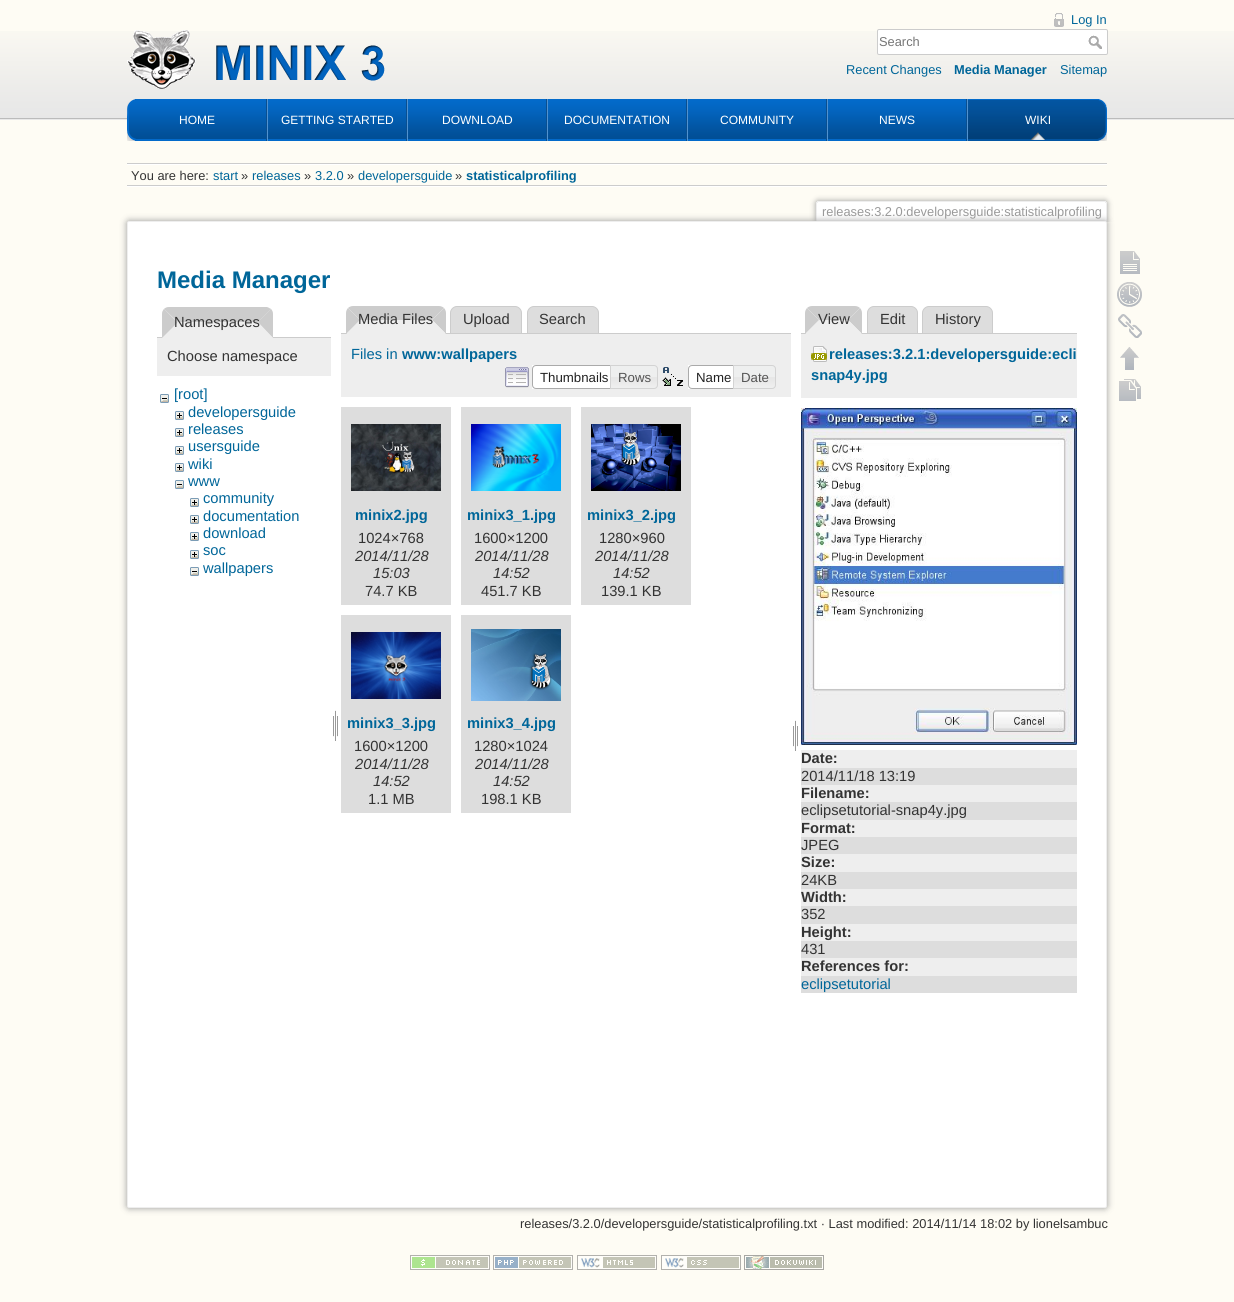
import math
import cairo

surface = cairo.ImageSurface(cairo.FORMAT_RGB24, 1234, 1302)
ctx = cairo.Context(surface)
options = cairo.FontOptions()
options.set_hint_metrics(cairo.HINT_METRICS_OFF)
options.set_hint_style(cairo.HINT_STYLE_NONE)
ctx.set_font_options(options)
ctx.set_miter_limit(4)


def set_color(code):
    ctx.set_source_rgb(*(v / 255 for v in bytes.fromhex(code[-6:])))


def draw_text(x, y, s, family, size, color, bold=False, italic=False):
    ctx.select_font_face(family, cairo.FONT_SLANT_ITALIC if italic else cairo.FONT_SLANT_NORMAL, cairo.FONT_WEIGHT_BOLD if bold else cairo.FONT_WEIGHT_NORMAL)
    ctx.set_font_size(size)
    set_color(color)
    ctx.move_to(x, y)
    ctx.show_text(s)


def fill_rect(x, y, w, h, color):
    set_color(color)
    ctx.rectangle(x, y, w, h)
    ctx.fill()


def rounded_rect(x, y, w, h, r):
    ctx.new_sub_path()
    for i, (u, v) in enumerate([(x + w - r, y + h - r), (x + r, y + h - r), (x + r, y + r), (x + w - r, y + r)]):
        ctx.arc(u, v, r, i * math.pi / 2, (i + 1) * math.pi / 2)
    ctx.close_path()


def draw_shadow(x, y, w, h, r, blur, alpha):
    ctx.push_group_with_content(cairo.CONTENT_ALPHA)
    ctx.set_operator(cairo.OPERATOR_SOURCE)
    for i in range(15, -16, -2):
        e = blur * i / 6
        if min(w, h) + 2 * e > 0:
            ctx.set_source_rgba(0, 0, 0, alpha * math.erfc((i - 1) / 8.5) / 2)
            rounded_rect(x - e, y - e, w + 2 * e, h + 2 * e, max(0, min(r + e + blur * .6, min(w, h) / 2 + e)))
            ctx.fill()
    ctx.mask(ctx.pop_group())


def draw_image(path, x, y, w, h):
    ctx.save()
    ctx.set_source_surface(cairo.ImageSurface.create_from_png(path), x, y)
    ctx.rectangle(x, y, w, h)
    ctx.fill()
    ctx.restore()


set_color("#fefcf4")
ctx.paint()
draw_image("assets/img1.png", 0, 31, 1234, 89)
draw_image("assets/img2.png", 1054, 13, 10, 14)
draw_text(1071, 24, "Log In", "Liberation Sans", 12.85, "#006699")
set_color("#ffffff")
rounded_rect(877.5, 29.5, 230, 25, 1.5)
ctx.fill_preserve()
set_color("#cccccc")
ctx.set_line_width(1)
ctx.stroke()
draw_text(879, 46, "Search", "Liberation Sans", 12.85, "#757575")
draw_image("assets/img3.png", 1088, 35, 14, 14)
draw_text(846, 74, "Recent Changes", "Liberation Sans", 12.85, "#006699")
draw_text(954, 74, "Media Manager", "Liberation Sans", 12.85, "#006699", bold=True)
draw_text(1060, 74, "Sitemap", "Liberation Sans", 12.85, "#006699")
draw_image("assets/img4.png", 127, 30, 258, 59)
draw_image("assets/img5.png", 127, 99, 139, 42)
fill_rect(266, 99, 1, 42, "#094f90")
draw_text(179, 124, "HOME", "Liberation Sans", 12, "#ffffff")
draw_image("assets/img6.png", 268, 99, 138, 42)
fill_rect(406, 99, 1, 42, "#094f90")
fill_rect(267, 99, 1, 42, "#5092d0")
draw_text(281, 124, "GETTING STARTED", "Liberation Sans", 12, "#ffffff")
draw_image("assets/img6.png", 408, 99, 138, 42)
fill_rect(546, 99, 1, 42, "#094f90")
fill_rect(407, 99, 1, 42, "#5092d0")
draw_text(442, 124, "DOWNLOAD", "Liberation Sans", 12, "#ffffff")
draw_image("assets/img6.png", 548, 99, 138, 42)
fill_rect(686, 99, 1, 42, "#094f90")
fill_rect(547, 99, 1, 42, "#5092d0")
draw_text(564, 124, "DOCUMENTATION", "Liberation Sans", 12, "#ffffff")
draw_image("assets/img6.png", 688, 99, 138, 42)
fill_rect(826, 99, 1, 42, "#094f90")
fill_rect(687, 99, 1, 42, "#5092d0")
draw_text(720, 124, "COMMUNITY", "Liberation Sans", 12, "#ffffff")
draw_image("assets/img6.png", 828, 99, 138, 42)
fill_rect(966, 99, 1, 42, "#094f90")
fill_rect(827, 99, 1, 42, "#5092d0")
draw_text(879, 124, "NEWS", "Liberation Sans", 12, "#ffffff")
draw_image("assets/img7.png", 968, 99, 139, 42)
fill_rect(967, 99, 1, 42, "#5092d0")
draw_image("assets/img8.png", 1030, 132, 15, 8)
draw_text(1025, 124, "WIKI", "Liberation Sans", 12, "#ffffff")
fill_rect(127, 163, 980, 1, "#cccccc")
fill_rect(127, 186, 980, 1, "#ffffff")
fill_rect(127, 164, 980, 1, "#ffffff")
fill_rect(127, 185, 980, 1, "#cccccc")
draw_text(131, 180, "You are here:", "Liberation Sans", 12.85, "#333333")
draw_text(213, 180, "start", "Liberation Sans", 12.85, "#006699")
draw_text(241, 180, "»", "Liberation Sans", 12.85, "#333333")
draw_text(252, 180, "releases", "Liberation Sans", 12.85, "#006699")
draw_text(304, 180, "»", "Liberation Sans", 12.85, "#333333")
draw_text(315, 180, "3.2.0", "Liberation Sans", 12.85, "#006699")
draw_text(347, 180, "»", "Liberation Sans", 12.85, "#333333")
draw_text(358, 180, "developersguide", "Liberation Sans", 12.85, "#006699")
draw_text(455, 180, "»", "Liberation Sans", 12.85, "#333333")
draw_text(466, 180, "statisticalprofiling", "Liberation Sans", 12.85, "#006699", bold=True)
ctx.save()
ctx.rectangle(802, 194, 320, 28)
ctx.clip()
set_color("#999999")
draw_shadow(816, 201, 291, 21, 2, 3, 1)
ctx.restore()
set_color("#ffffff")
ctx.new_path()
ctx.move_to(818, 202)
ctx.line_to(1105, 202)
ctx.curve_to(1105.5, 202, 1106, 202.5, 1106, 203)
ctx.line_to(1106, 222)
ctx.line_to(817, 222)
ctx.line_to(817, 203)
ctx.curve_to(817, 202.5, 817.5, 202, 818, 202)
ctx.close_path()
ctx.fill()
fill_rect(817, 201, 289, 1, "#eeeeee")
fill_rect(1106, 202, 1, 20, "#eeeeee")
fill_rect(816, 202, 1, 20, "#eeeeee")
draw_text(822, 216, "releases:3.2.0:developersguide:statisticalprofiling", "Liberation Sans", 12.85, "#999999")
set_color("#999999")
draw_shadow(127, 221, 980, 987, 2, 3.5, 1)
set_color("#ffffff")
rounded_rect(127.5, 221.5, 979, 986, 1.5)
ctx.fill_preserve()
set_color("#eeeeee")
ctx.stroke()
draw_text(157, 288, "Media Manager", "Liberation Sans", 24, "#006699", bold=True)
fill_rect(157, 337, 174, 1, "#cccccc")
set_color("#eeeeee")
ctx.new_path()
ctx.move_to(169, 307)
ctx.line_to(266, 307)
ctx.curve_to(270, 307, 273, 310, 273, 314)
ctx.line_to(273, 338)
ctx.line_to(162, 338)
ctx.line_to(162, 314)
ctx.curve_to(162, 310, 165, 307, 169, 307)
ctx.close_path()
ctx.fill()
set_color("#cccccc")
ctx.new_path()
ctx.move_to(169, 307)
ctx.line_to(267, 307)
ctx.line_to(271, 309)
ctx.line_to(258, 322)
ctx.line_to(178, 322)
ctx.line_to(164, 309)
ctx.curve_to(165, 308, 167, 307, 169, 307)
ctx.close_path()
ctx.fill()
ctx.new_path()
ctx.move_to(271, 309)
ctx.line_to(257.5, 322.5)
ctx.line_to(273, 338)
ctx.line_to(273, 314)
ctx.curve_to(273, 312, 272, 310, 271, 309)
ctx.close_path()
ctx.fill()
set_color("#eeeeee")
ctx.new_path()
ctx.move_to(273, 338)
ctx.line_to(258, 322)
ctx.line_to(178, 322)
ctx.line_to(162, 338)
ctx.close_path()
ctx.fill()
set_color("#cccccc")
ctx.new_path()
ctx.move_to(162, 338)
ctx.line_to(162, 314)
ctx.curve_to(162, 312, 163, 310, 164, 309)
ctx.line_to(177.5, 322.5)
ctx.close_path()
ctx.fill()
draw_text(174, 327, "Namespaces", "Liberation Sans", 14.7, "#333333")
fill_rect(157, 338, 174, 38, "#eeeeee")
draw_text(167, 361, "Choose namespace", "Liberation Sans", 14.7, "#333333")
draw_image("assets/img9.png", 160, 394, 9, 9)
draw_text(174, 399, "[root]", "Liberation Sans", 14.7, "#006699")
draw_image("assets/img10.png", 175, 411, 9, 9)
draw_text(188, 417, "developersguide", "Liberation Sans", 14.7, "#006699")
draw_image("assets/img10.png", 175, 428, 9, 9)
draw_text(188, 434, "releases", "Liberation Sans", 14.7, "#006699")
draw_image("assets/img10.png", 175, 446, 9, 9)
draw_text(188, 451, "usersguide", "Liberation Sans", 14.7, "#006699")
draw_image("assets/img10.png", 175, 463, 9, 9)
draw_text(188, 469, "wiki", "Liberation Sans", 14.7, "#006699")
draw_image("assets/img9.png", 175, 480, 9, 9)
draw_text(188, 486, "www", "Liberation Sans", 14.7, "#006699")
draw_image("assets/img10.png", 190, 498, 9, 9)
draw_text(203, 503, "community", "Liberation Sans", 14.7, "#006699")
draw_image("assets/img10.png", 190, 515, 9, 9)
draw_text(203, 521, "documentation", "Liberation Sans", 14.7, "#006699")
draw_image("assets/img10.png", 190, 532, 9, 9)
draw_text(203, 538, "download", "Liberation Sans", 14.7, "#006699")
draw_image("assets/img10.png", 190, 550, 9, 9)
draw_text(203, 555, "soc", "Liberation Sans", 14.7, "#006699")
draw_image("assets/img9.png", 190, 567, 9, 9)
draw_text(203, 573, "wallpapers", "Liberation Sans", 14.7, "#006699")
draw_image("assets/img11.png", 333, 710, 5, 31)
set_color("#cccccc")
ctx.new_path()
ctx.move_to(353, 306)
ctx.line_to(439, 306)
ctx.curve_to(441, 306, 443, 307, 444, 308)
ctx.line_to(432, 320)
ctx.line_to(360, 320)
ctx.line_to(348, 308)
ctx.curve_to(349, 307, 351, 306, 353, 306)
ctx.close_path()
ctx.fill()
set_color("#dddddd")
ctx.new_path()
ctx.move_to(457, 306.5)
ctx.line_to(515, 306.5)
ctx.curve_to(518.5, 306.5, 521.5, 309.5, 521.5, 313)
ctx.line_to(521.5, 333.5)
ctx.line_to(450.5, 333.5)
ctx.line_to(450.5, 313)
ctx.curve_to(450.5, 309.5, 453.5, 306.5, 457, 306.5)
ctx.close_path()
ctx.fill_preserve()
set_color("#cccccc")
ctx.stroke()
set_color("#dddddd")
ctx.new_path()
ctx.move_to(534, 306.5)
ctx.line_to(592, 306.5)
ctx.curve_to(595.5, 306.5, 598.5, 309.5, 598.5, 313)
ctx.line_to(598.5, 333.5)
ctx.line_to(527.5, 333.5)
ctx.line_to(527.5, 313)
ctx.curve_to(527.5, 309.5, 530.5, 306.5, 534, 306.5)
ctx.close_path()
ctx.fill_preserve()
set_color("#cccccc")
ctx.stroke()
fill_rect(341, 333, 450, 1, "#cccccc")
ctx.new_path()
ctx.move_to(444, 308)
ctx.line_to(432, 320)
ctx.line_to(446, 334)
ctx.line_to(446, 313)
ctx.curve_to(446, 311, 445, 309, 444, 308)
ctx.close_path()
ctx.fill()
set_color("#eeeeee")
ctx.new_path()
ctx.move_to(446, 334)
ctx.line_to(432, 320)
ctx.line_to(360, 320)
ctx.line_to(346, 334)
ctx.close_path()
ctx.fill()
set_color("#cccccc")
ctx.new_path()
ctx.move_to(346, 334)
ctx.line_to(346, 313)
ctx.curve_to(346, 311, 347, 309, 348, 308)
ctx.line_to(360, 320)
ctx.close_path()
ctx.fill()
draw_text(358, 324, "Media Files", "Liberation Sans", 14.7, "#333333")
draw_text(463, 324, "Upload", "Liberation Sans", 14.7, "#333333")
draw_text(539, 324, "Search", "Liberation Sans", 14.7, "#333333")
fill_rect(341, 334, 450, 63, "#eeeeee")
draw_text(351, 359, "Files in", "Liberation Sans", 14.7, "#006699")
draw_text(402, 359, "www:wallpapers", "Liberation Sans", 14.7, "#006699", bold=True)
draw_image("assets/img12.png", 505, 367, 24, 21)
fill_rect(532, 365, 78, 24, "#ffffff")
ctx.new_path()
ctx.move_to(536, 365.5)
ctx.line_to(614.5, 365.5)
ctx.line_to(614.5, 388.5)
ctx.line_to(536, 388.5)
ctx.curve_to(534, 388.5, 532.5, 387, 532.5, 385)
ctx.line_to(532.5, 369)
ctx.curve_to(532.5, 367, 534, 365.5, 536, 365.5)
ctx.close_path()
set_color("#aaaaaa")
ctx.stroke()
draw_text(540, 382, "Thumbnails", "Liberation Sans", 13.25, "#212121")
draw_image("assets/img13.png", 611, 365, 47, 24)
ctx.new_path()
ctx.move_to(610.5, 365.5)
ctx.line_to(654, 365.5)
ctx.curve_to(656, 365.5, 657.5, 367, 657.5, 369)
ctx.line_to(657.5, 385)
ctx.curve_to(657.5, 387, 656, 388.5, 654, 388.5)
ctx.line_to(610.5, 388.5)
ctx.close_path()
set_color("#d3d3d3")
ctx.stroke()
draw_text(618, 382, "Rows", "Liberation Sans", 13.25, "#555555")
draw_image("assets/img14.png", 662, 367, 21, 19)
fill_rect(688, 365, 45, 24, "#ffffff")
ctx.new_path()
ctx.move_to(692, 365.5)
ctx.line_to(737.5, 365.5)
ctx.line_to(737.5, 388.5)
ctx.line_to(692, 388.5)
ctx.curve_to(690, 388.5, 688.5, 387, 688.5, 385)
ctx.line_to(688.5, 369)
ctx.curve_to(688.5, 367, 690, 365.5, 692, 365.5)
ctx.close_path()
set_color("#aaaaaa")
ctx.stroke()
draw_text(696, 382, "Name", "Liberation Sans", 13.25, "#212121")
draw_image("assets/img15.png", 734, 365, 42, 24)
ctx.new_path()
ctx.move_to(733.5, 365.5)
ctx.line_to(772, 365.5)
ctx.curve_to(774, 365.5, 775.5, 367, 775.5, 369)
ctx.line_to(775.5, 385)
ctx.curve_to(775.5, 387, 774, 388.5, 772, 388.5)
ctx.line_to(733.5, 388.5)
ctx.close_path()
set_color("#d3d3d3")
ctx.stroke()
draw_text(741, 382, "Date", "Liberation Sans", 13.25, "#555555")
fill_rect(341, 407, 110, 198, "#dddddd")
draw_image("assets/img16.png", 351, 424, 90, 67)
draw_text(355, 520, "minix2.jpg", "Liberation Sans", 14.7, "#006699", bold=True)
draw_text(358, 543, "1024×768", "Liberation Sans", 14.7, "#333333")
draw_text(355, 561, "2014/11/28", "Liberation Sans", 14.7, "#333333", italic=True)
draw_text(373, 578, "15:03", "Liberation Sans", 14.7, "#333333", italic=True)
draw_text(365, 596, "74.7 KB", "Liberation Sans", 14.7, "#333333")
fill_rect(461, 407, 110, 198, "#dddddd")
draw_image("assets/img17.png", 471, 424, 90, 67)
draw_text(467, 520, "minix3_1.jpg", "Liberation Sans", 14.7, "#006699", bold=True)
draw_text(474, 543, "1600×1200", "Liberation Sans", 14.7, "#333333")
draw_text(475, 561, "2014/11/28", "Liberation Sans", 14.7, "#333333", italic=True)
draw_text(493, 578, "14:52", "Liberation Sans", 14.7, "#333333", italic=True)
draw_text(481, 596, "451.7 KB", "Liberation Sans", 14.7, "#333333")
fill_rect(581, 407, 110, 198, "#dddddd")
draw_image("assets/img18.png", 591, 424, 90, 67)
draw_text(587, 520, "minix3_2.jpg", "Liberation Sans", 14.7, "#006699", bold=True)
draw_text(599, 543, "1280×960", "Liberation Sans", 14.7, "#333333")
draw_text(595, 561, "2014/11/28", "Liberation Sans", 14.7, "#333333", italic=True)
draw_text(613, 578, "14:52", "Liberation Sans", 14.7, "#333333", italic=True)
draw_text(601, 596, "139.1 KB", "Liberation Sans", 14.7, "#333333")
fill_rect(341, 615, 110, 198, "#dddddd")
draw_image("assets/img19.png", 351, 632, 90, 67)
draw_text(347, 728, "minix3_3.jpg", "Liberation Sans", 14.7, "#006699", bold=True)
draw_text(354, 751, "1600×1200", "Liberation Sans", 14.7, "#333333")
draw_text(355, 769, "2014/11/28", "Liberation Sans", 14.7, "#333333", italic=True)
draw_text(373, 786, "14:52", "Liberation Sans", 14.7, "#333333", italic=True)
draw_text(368, 804, "1.1 MB", "Liberation Sans", 14.7, "#333333")
fill_rect(461, 615, 110, 198, "#dddddd")
draw_image("assets/img20.png", 471, 629, 90, 72)
draw_text(467, 728, "minix3_4.jpg", "Liberation Sans", 14.7, "#006699", bold=True)
draw_text(474, 751, "1280×1024", "Liberation Sans", 14.7, "#333333")
draw_text(475, 769, "2014/11/28", "Liberation Sans", 14.7, "#333333", italic=True)
draw_text(493, 786, "14:52", "Liberation Sans", 14.7, "#333333", italic=True)
draw_text(481, 804, "198.1 KB", "Liberation Sans", 14.7, "#333333")
draw_image("assets/img11.png", 793, 720, 5, 31)
set_color("#cccccc")
ctx.new_path()
ctx.move_to(812, 306)
ctx.line_to(855, 306)
ctx.curve_to(857, 306, 859, 307, 860, 308)
ctx.line_to(848, 320)
ctx.line_to(819, 320)
ctx.line_to(807, 308)
ctx.curve_to(808, 307, 810, 306, 812, 306)
ctx.close_path()
ctx.fill()
set_color("#dddddd")
ctx.new_path()
ctx.move_to(874, 306.5)
ctx.line_to(911, 306.5)
ctx.curve_to(914.5, 306.5, 917.5, 309.5, 917.5, 313)
ctx.line_to(917.5, 333.5)
ctx.line_to(867.5, 333.5)
ctx.line_to(867.5, 313)
ctx.curve_to(867.5, 309.5, 870.5, 306.5, 874, 306.5)
ctx.close_path()
ctx.fill_preserve()
set_color("#cccccc")
ctx.stroke()
set_color("#dddddd")
ctx.new_path()
ctx.move_to(929, 306.5)
ctx.line_to(986, 306.5)
ctx.curve_to(989.5, 306.5, 992.5, 309.5, 992.5, 313)
ctx.line_to(992.5, 333.5)
ctx.line_to(922.5, 333.5)
ctx.line_to(922.5, 313)
ctx.curve_to(922.5, 309.5, 925.5, 306.5, 929, 306.5)
ctx.close_path()
ctx.fill_preserve()
set_color("#cccccc")
ctx.stroke()
fill_rect(801, 333, 276, 1, "#cccccc")
ctx.new_path()
ctx.move_to(860, 308)
ctx.line_to(848, 320)
ctx.line_to(862, 334)
ctx.line_to(862, 313)
ctx.curve_to(862, 311, 861, 309, 860, 308)
ctx.close_path()
ctx.fill()
set_color("#eeeeee")
ctx.new_path()
ctx.move_to(862, 334)
ctx.line_to(848, 320)
ctx.line_to(819, 320)
ctx.line_to(805, 334)
ctx.close_path()
ctx.fill()
set_color("#cccccc")
ctx.new_path()
ctx.move_to(805, 334)
ctx.line_to(805, 313)
ctx.curve_to(805, 311, 806, 309, 807, 308)
ctx.line_to(819, 320)
ctx.close_path()
ctx.fill()
draw_text(818, 324, "View", "Liberation Sans", 14.7, "#333333")
draw_text(880, 324, "Edit", "Liberation Sans", 14.7, "#333333")
draw_text(935, 324, "History", "Liberation Sans", 14.7, "#333333")
fill_rect(801, 334, 276, 64, "#eeeeee")
draw_image("assets/img21.png", 811, 346, 16, 16)
draw_text(829, 359, "releases:3.2.1:developersguide:ecli", "Liberation Sans", 14.7, "#006699", bold=True)
draw_text(811, 380, "snap4y.jpg", "Liberation Sans", 14.7, "#006699", bold=True)
draw_image("assets/img22.png", 801, 408, 276, 337)
fill_rect(801, 750, 276, 18, "#eeeeee")
draw_text(801, 763, "Date:", "Liberation Sans", 14.7, "#333333", bold=True)
fill_rect(801, 768, 276, 17, "#dddddd")
draw_text(801, 781, "2014/11/18 13:19", "Liberation Sans", 14.7, "#333333")
fill_rect(801, 785, 276, 17, "#eeeeee")
draw_text(801, 798, "Filename:", "Liberation Sans", 14.7, "#333333", bold=True)
fill_rect(801, 802, 276, 18, "#dddddd")
draw_text(801, 815, "eclipsetutorial-snap4y.jpg", "Liberation Sans", 14.7, "#333333")
fill_rect(801, 820, 276, 17, "#eeeeee")
draw_text(801, 833, "Format:", "Liberation Sans", 14.7, "#333333", bold=True)
fill_rect(801, 837, 276, 17, "#dddddd")
draw_text(801, 850, "JPEG", "Liberation Sans", 14.7, "#333333")
fill_rect(801, 854, 276, 18, "#eeeeee")
draw_text(801, 867, "Size:", "Liberation Sans", 14.7, "#333333", bold=True)
fill_rect(801, 872, 276, 17, "#dddddd")
draw_text(801, 885, "24KB", "Liberation Sans", 14.7, "#333333")
fill_rect(801, 889, 276, 17, "#eeeeee")
draw_text(801, 902, "Width:", "Liberation Sans", 14.7, "#333333", bold=True)
fill_rect(801, 906, 276, 18, "#dddddd")
draw_text(801, 919, "352", "Liberation Sans", 14.7, "#333333")
fill_rect(801, 924, 276, 17, "#eeeeee")
draw_text(801, 937, "Height:", "Liberation Sans", 14.7, "#333333", bold=True)
fill_rect(801, 941, 276, 17, "#dddddd")
draw_text(801, 954, "431", "Liberation Sans", 14.7, "#333333")
fill_rect(801, 958, 276, 18, "#eeeeee")
draw_text(801, 971, "References for:", "Liberation Sans", 14.7, "#333333", bold=True)
fill_rect(801, 976, 276, 17, "#dddddd")
draw_text(801, 989, "eclipsetutorial", "Liberation Sans", 14.7, "#006699")
draw_text(520, 1228, "releases/3.2.0/developersguide/statisticalprofiling.txt · Last modified: 2014/11/14 18:02 by lionelsambuc", "Liberation Sans", 12.85, "#333333")
draw_image("assets/img23.png", 1120, 251, 20, 23)
draw_image("assets/img24.png", 1117, 282, 25, 25)
draw_image("assets/img25.png", 1118, 314, 24, 24)
draw_image("assets/img26.png", 1120, 347, 19, 23)
draw_image("assets/img27.png", 1119, 379, 22, 22)
draw_image("assets/img28.png", 410, 1255, 80, 15)
draw_image("assets/img29.png", 493, 1255, 80, 15)
draw_image("assets/img30.png", 577, 1255, 80, 15)
draw_image("assets/img31.png", 661, 1255, 80, 15)
draw_image("assets/img32.png", 744, 1255, 80, 15)
surface.write_to_png("output.png")
